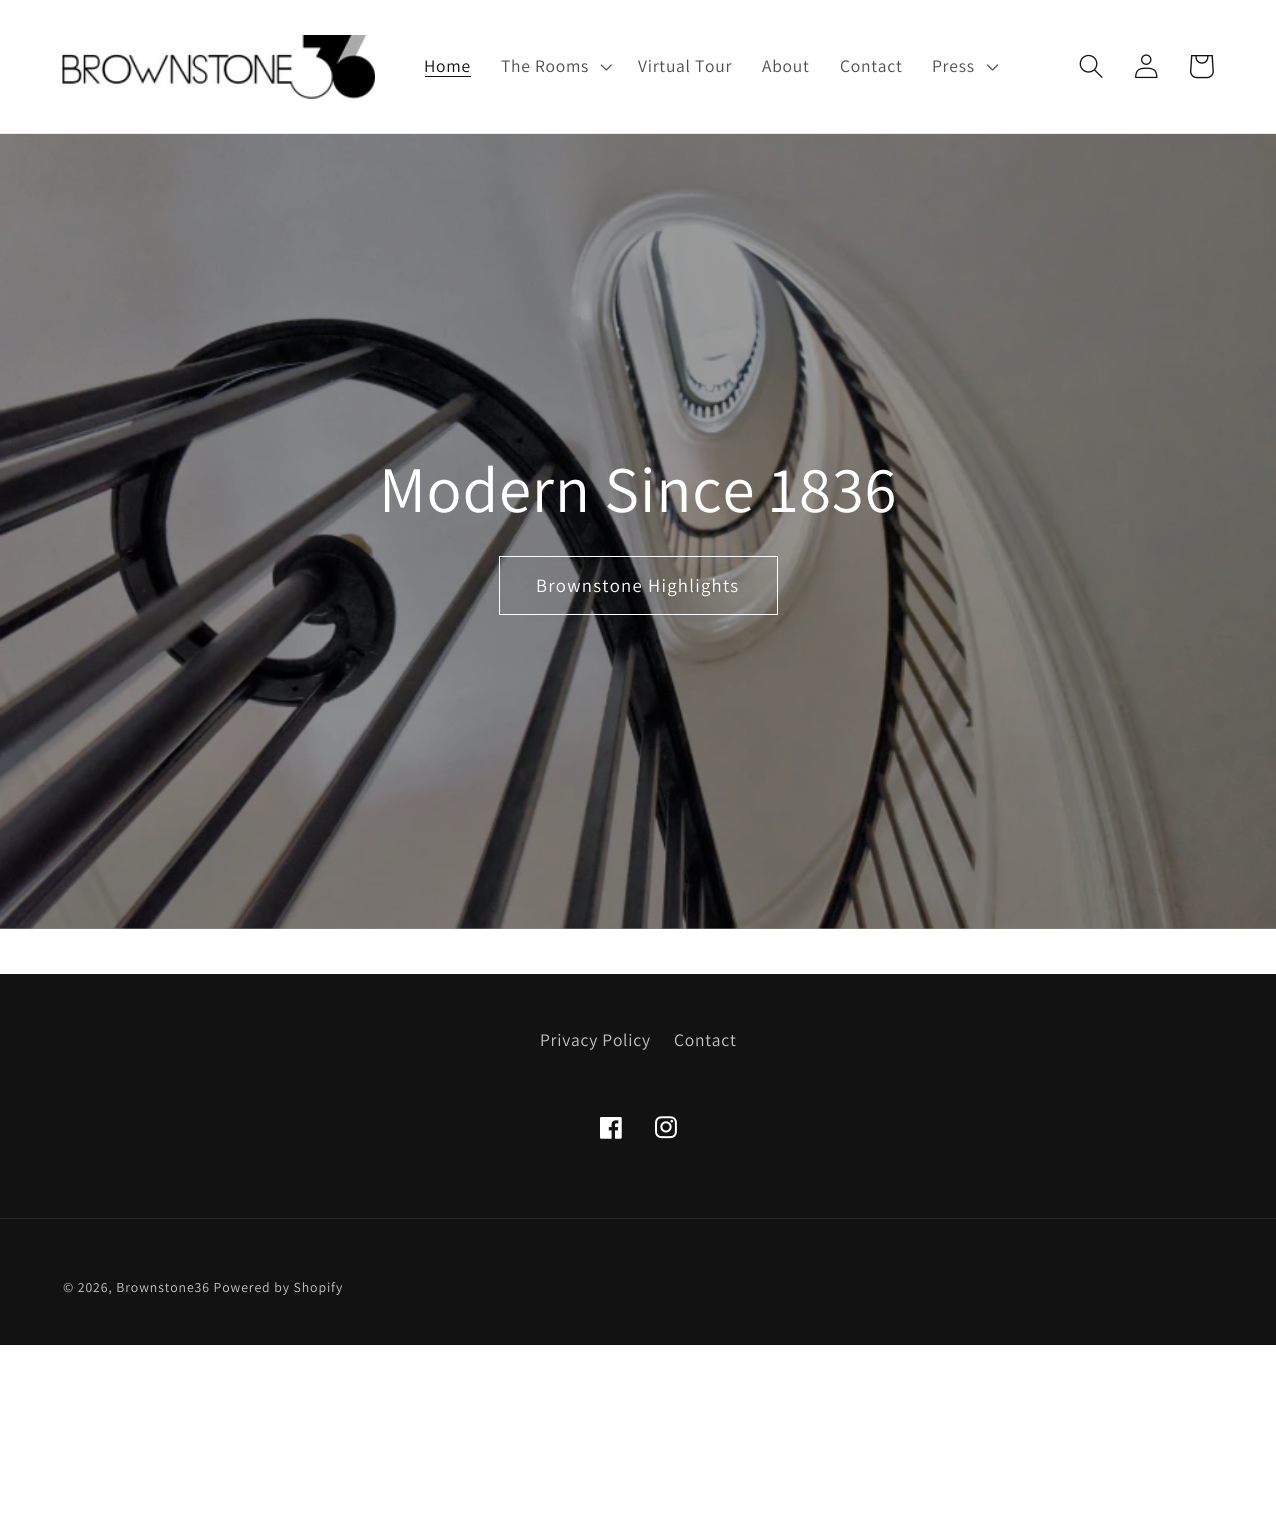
import math
import cairo

surface = cairo.ImageSurface(cairo.FORMAT_RGB24, 1276, 1514)
ctx = cairo.Context(surface)
options = cairo.FontOptions()
options.set_hint_metrics(cairo.HINT_METRICS_OFF)
options.set_hint_style(cairo.HINT_STYLE_NONE)
ctx.set_font_options(options)
ctx.set_miter_limit(4)


def set_color(code):
    ctx.set_source_rgb(*(v / 255 for v in bytes.fromhex(code[-6:])))


def draw_spaced(x, y, s, letter, word):
    ctx.move_to(x, y)
    for ch in s:
        ctx.show_text(ch)
        ctx.rel_move_to(letter + word * (ch == ' '), 0)


def fill_rect(x, y, w, h, color):
    set_color(color)
    ctx.rectangle(x, y, w, h)
    ctx.fill()


def draw_image(path, x, y, w, h):
    ctx.save()
    ctx.set_source_surface(cairo.ImageSurface.create_from_png(path), x, y)
    ctx.rectangle(x, y, w, h)
    ctx.fill()
    ctx.restore()


set_color("#ffffff")
ctx.paint()
fill_rect(0, 133, 1276, 1, "#ececec")
draw_image("assets/img1.png", 62, 35, 313, 64)
ctx.select_font_face("Assistant")
ctx.set_font_size(17.5)
set_color("#121212")
draw_spaced(424, 72, "Home", 0.75, 0)
fill_rect(425, 76, 46, 1, "#121212")
set_color("#4d4d4d")
draw_spaced(501, 72, "The Rooms", 0.75, 0)
draw_image("assets/img2.png", 600, 64, 12, 7)
draw_spaced(638, 72, "Virtual Tour", 0.75, 0)
draw_spaced(762, 72, "About", 0.75, 0)
draw_spaced(840, 72, "Contact", 0.75, 0)
draw_spaced(932, 72, "Press", 0.75, 0)
draw_image("assets/img3.png", 987, 64, 11, 7)
draw_image("assets/img4.png", 1079, 54, 24, 24)
draw_image("assets/img5.png", 1135, 54, 23, 25)
draw_image("assets/img6.png", 1190, 55, 24, 24)
fill_rect(0, 928, 1276, 1, "#8b8b8b")
draw_image("assets/img7.png", 0, 134, 1276, 795)
ctx.set_font_size(65)
set_color("#ffffff")
draw_spaced(379, 512, "Modern Since 1836", 0.75, 0)
ctx.rectangle(499.5, 556.5, 278, 58)
ctx.set_line_width(1)
ctx.stroke()
ctx.set_font_size(18.75)
draw_spaced(536, 592, "Brownstone Highlights", 1.25, 0)
fill_rect(0, 974, 1276, 371, "#121212")
ctx.set_font_size(17.5)
set_color("#c4c4c4")
draw_spaced(540, 1046, "Privacy Policy", 0.75, 0)
draw_spaced(674, 1046, "Contact", 0.75, 0)
draw_image("assets/img8.png", 600, 1117, 22, 22)
draw_image("assets/img9.png", 655, 1116, 22, 23)
fill_rect(0, 1218, 1276, 1, "#252525")
ctx.set_font_size(13.75)
set_color("#c4c4c4")
draw_spaced(63, 1292, "© 2026, Brownstone36 Powered by Shopify", 0.9, 0)
surface.write_to_png("output.png")
